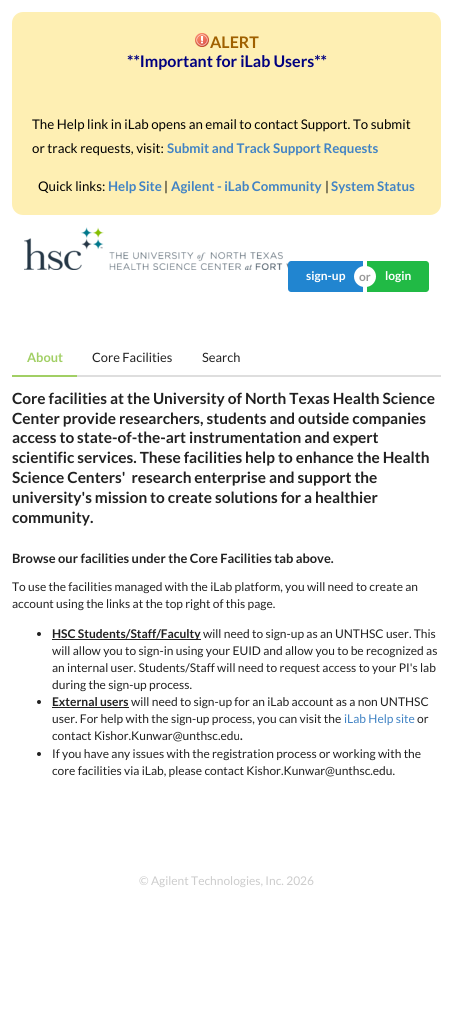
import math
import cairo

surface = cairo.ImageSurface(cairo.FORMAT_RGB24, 453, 1030)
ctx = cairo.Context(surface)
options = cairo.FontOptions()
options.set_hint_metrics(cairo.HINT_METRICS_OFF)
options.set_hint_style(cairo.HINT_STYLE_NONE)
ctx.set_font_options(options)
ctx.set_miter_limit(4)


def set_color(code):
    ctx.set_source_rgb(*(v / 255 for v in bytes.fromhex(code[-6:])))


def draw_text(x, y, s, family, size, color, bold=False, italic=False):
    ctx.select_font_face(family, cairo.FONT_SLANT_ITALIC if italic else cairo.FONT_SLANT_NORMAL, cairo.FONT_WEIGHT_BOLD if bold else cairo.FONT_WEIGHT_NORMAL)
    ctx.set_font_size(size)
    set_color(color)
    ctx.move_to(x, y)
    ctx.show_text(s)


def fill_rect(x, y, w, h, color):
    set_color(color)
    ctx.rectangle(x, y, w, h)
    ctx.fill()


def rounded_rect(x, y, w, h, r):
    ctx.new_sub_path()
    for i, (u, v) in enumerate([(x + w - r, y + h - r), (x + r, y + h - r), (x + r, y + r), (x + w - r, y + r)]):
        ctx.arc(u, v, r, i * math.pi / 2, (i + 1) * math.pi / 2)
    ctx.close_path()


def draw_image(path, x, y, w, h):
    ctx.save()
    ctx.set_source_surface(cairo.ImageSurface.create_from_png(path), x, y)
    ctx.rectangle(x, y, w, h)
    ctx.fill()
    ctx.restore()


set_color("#ffffff")
ctx.paint()
set_color("#feefb3")
rounded_rect(12, 12, 429, 203, 11)
ctx.fill()
draw_image("assets/img1.png", 195, 33, 14, 14)
draw_text(210, 48, "ALERT", "Lato", 16, "#9f6000", bold=True)
draw_text(127, 67, "**Important for iLab Users**", "Lato", 16, "#000080", bold=True)
draw_text(32, 129, "The Help link in iLab opens an email to contact Support. To submit", "Lato", 13.3, "#000000")
draw_text(32, 153, "or track requests, visit:", "Lato", 13.3, "#000000")
draw_text(167, 153, "Submit and Track Support Requests", "Lato", 13.3, "#4183c4", bold=True)
draw_text(38, 191, "Quick links:", "Lato", 13.3, "#000000")
draw_text(108, 191, "Help Site", "Lato", 13.3, "#4183c4", bold=True)
draw_text(164, 191, "|", "Lato", 13.3, "#000000")
draw_text(171, 191, "Agilent - iLab Community", "Lato", 13.3, "#4183c4", bold=True)
draw_text(325, 191, "|", "Lato", 13.3, "#000000")
draw_text(331, 191, "System Status", "Lato", 13.3, "#4183c4", bold=True)
draw_image("assets/img2.png", 24, 227, 264, 43)
set_color("#2185d0")
ctx.new_path()
ctx.move_to(291, 261)
ctx.line_to(363, 261)
ctx.line_to(363, 292)
ctx.line_to(291, 292)
ctx.curve_to(289.5, 292, 288, 290.5, 288, 289)
ctx.line_to(288, 264)
ctx.curve_to(288, 262.5, 289.5, 261, 291, 261)
ctx.close_path()
ctx.fill()
draw_text(306, 280, "sign-up", "Lato", 12, "#ffffff", bold=True)
set_color("#21ba45")
ctx.new_path()
ctx.move_to(367, 261)
ctx.line_to(426, 261)
ctx.curve_to(427.5, 261, 429, 262.5, 429, 264)
ctx.line_to(429, 289)
ctx.curve_to(429, 290.5, 427.5, 292, 426, 292)
ctx.line_to(367, 292)
ctx.close_path()
ctx.fill()
set_color("#ffffff")
rounded_rect(354, 266, 22, 21, 10.5)
ctx.fill()
draw_text(359, 281, "or", "Lato", 12, "#999999", bold=True)
draw_text(385, 280, "login", "Lato", 12, "#ffffff", bold=True)
fill_rect(77, 375, 364, 2, "#dedede")
fill_rect(12, 375, 65, 2, "#a1cf64")
draw_text(27, 362, "About", "Lato", 12.85, "#a1cf64", bold=True)
draw_text(92, 362, "Core Facilities", "Lato", 12.85, "#212121")
draw_text(202, 362, "Search", "Lato", 12.85, "#212121")
draw_text(12, 404, "Core facilities at the University of North Texas Health Science", "Lato", 15.4, "#212121", bold=True)
draw_text(12, 424, "Center provide researchers, students and outside companies", "Lato", 15.4, "#212121", bold=True)
draw_text(12, 443, "access to state-of-the-art instrumentation and expert", "Lato", 15.4, "#212121", bold=True)
draw_text(12, 463, "scientific services. These facilities help to enhance the Health", "Lato", 15.4, "#212121", bold=True)
draw_text(12, 483, "Science Centers'  research enterprise and support the", "Lato", 15.4, "#212121", bold=True)
draw_text(12, 503, "university's mission to create solutions for a healthier", "Lato", 15.4, "#212121", bold=True)
draw_text(12, 523, "community.", "Lato", 15.4, "#212121", bold=True)
draw_text(12, 563, "Browse our facilities under the Core Facilities tab above.", "Lato", 12.85, "#212121", bold=True)
draw_text(12, 591, "To use the facilities managed with the iLab platform, you will need to create an", "Lato", 12, "#212121")
draw_text(12, 608, "account using the links at the top right of this page.", "Lato", 12, "#212121")
ctx.new_path()
ctx.arc(39, 634, 2, 0, 2 * math.pi)
ctx.fill()
fill_rect(52, 639, 149, 1, "#212121")
draw_text(52, 638, "HSC Students/Staff/Faculty", "Lato", 12, "#212121", bold=True)
draw_text(203, 638, "will need to sign-up as an UNTHSC user. This", "Lato", 12, "#212121")
draw_text(52, 655, "will allow you to sign-in using your EUID and allow you to be recognized as", "Lato", 12, "#212121")
draw_text(52, 672, "an internal user. Students/Staff will need to request access to your PI's lab", "Lato", 12, "#212121")
draw_text(52, 689, "during the sign-up process.", "Lato", 12, "#212121")
ctx.new_path()
ctx.arc(39, 702, 2, 0, 2 * math.pi)
ctx.fill()
draw_text(52, 706, "External users", "Lato", 12, "#212121", bold=True)
fill_rect(52, 707, 77, 1, "#212121")
draw_text(131, 706, "will need to sign-up for an iLab account as a non UNTHSC", "Lato", 12, "#212121")
draw_text(52, 723, "user. For help with the sign-up process, you can visit the", "Lato", 12, "#212121")
draw_text(344, 723, "iLab Help site", "Lato", 12, "#4183c4")
draw_text(417, 723, "or", "Lato", 12, "#212121")
draw_text(52, 740, "contact Kishor.Kunwar@unthsc.edu", "Lato", 12, "#212121")
draw_text(240, 740, ".", "Lato", 12, "#212121", bold=True)
ctx.new_path()
ctx.arc(39, 754, 2, 0, 2 * math.pi)
ctx.fill()
draw_text(52, 758, "If you have any issues with the registration process or working with the", "Lato", 12, "#212121")
draw_text(52, 775, "core facilities via iLab, please contact Kishor.Kunwar@unthsc.edu.", "Lato", 12, "#212121")
draw_text(139, 885, "© Agilent Technologies, Inc. 2026", "Lato", 12, "#cccccc")
surface.write_to_png("output.png")
